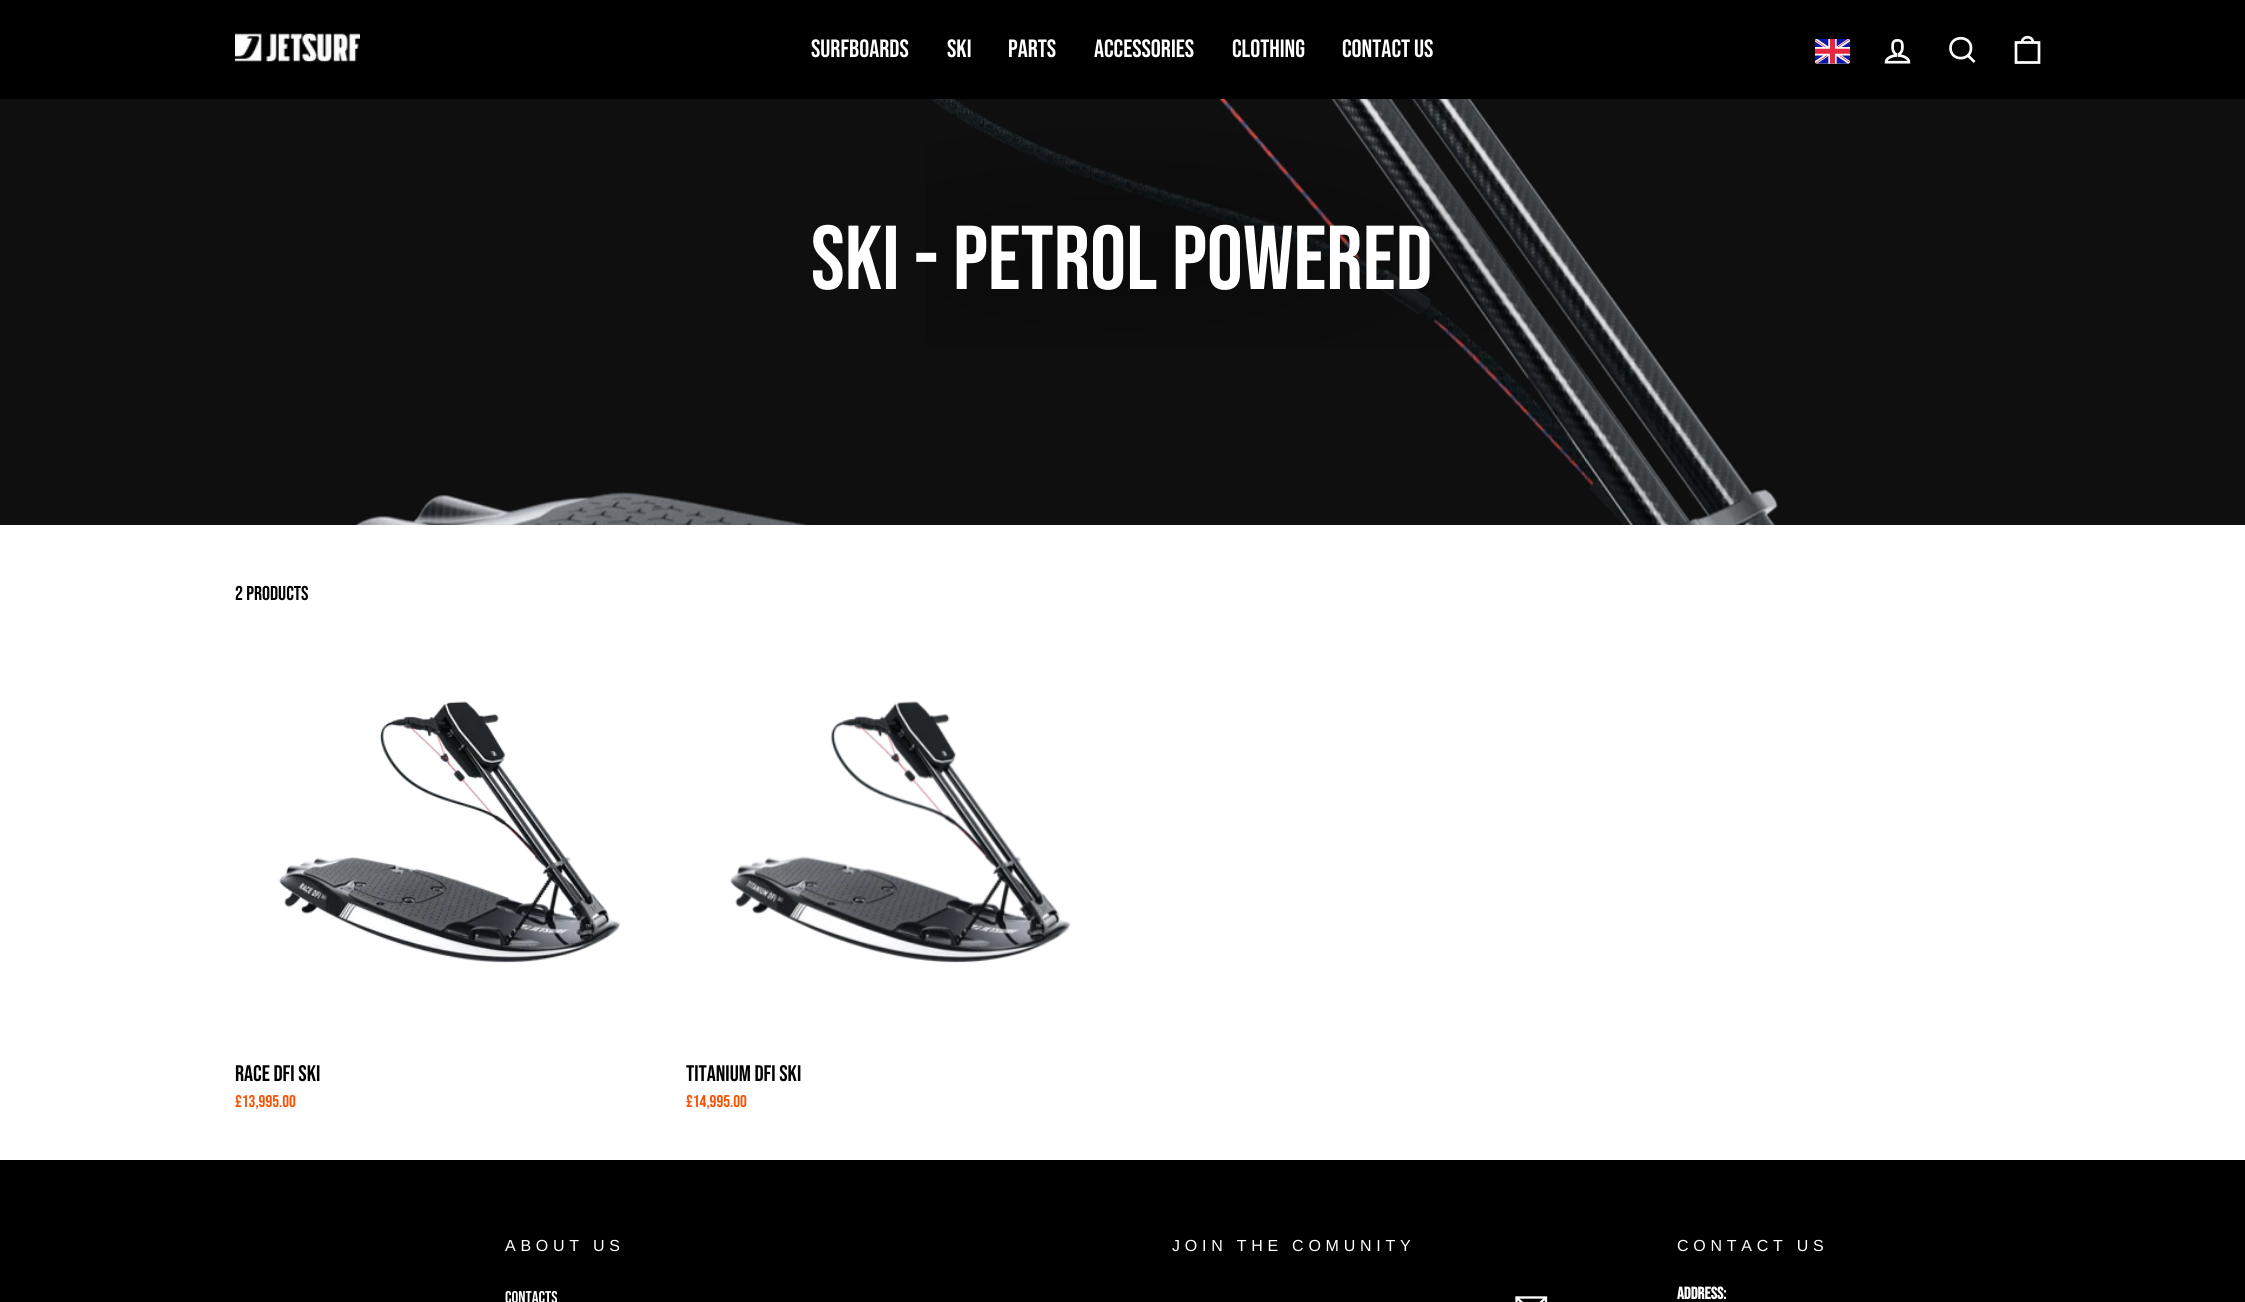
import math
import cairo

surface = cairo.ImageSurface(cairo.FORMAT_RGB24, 2245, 1302)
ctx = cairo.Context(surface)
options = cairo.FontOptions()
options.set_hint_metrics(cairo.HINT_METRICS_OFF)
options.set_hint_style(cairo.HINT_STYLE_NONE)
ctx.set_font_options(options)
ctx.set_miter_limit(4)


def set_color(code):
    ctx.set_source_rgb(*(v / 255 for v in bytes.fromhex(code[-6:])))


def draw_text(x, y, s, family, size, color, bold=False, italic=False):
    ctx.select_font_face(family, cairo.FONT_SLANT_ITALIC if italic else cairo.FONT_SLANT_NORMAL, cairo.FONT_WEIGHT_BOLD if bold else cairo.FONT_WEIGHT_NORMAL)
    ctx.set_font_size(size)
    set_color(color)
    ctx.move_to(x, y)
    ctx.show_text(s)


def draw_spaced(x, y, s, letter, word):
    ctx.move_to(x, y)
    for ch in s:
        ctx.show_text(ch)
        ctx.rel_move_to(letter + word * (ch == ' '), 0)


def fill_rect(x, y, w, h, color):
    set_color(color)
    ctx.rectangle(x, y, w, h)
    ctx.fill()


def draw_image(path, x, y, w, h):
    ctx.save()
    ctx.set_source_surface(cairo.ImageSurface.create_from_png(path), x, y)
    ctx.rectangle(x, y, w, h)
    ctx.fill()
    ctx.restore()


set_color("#ffffff")
ctx.paint()
fill_rect(0, 0, 2245, 99, "#000000")
draw_image("assets/img1.png", 235, 33, 125, 29)
draw_text(811, 57, "SURFBOARDS", "Bebas Neue", 25, "#ffffff")
draw_text(947, 57, "SKI", "Bebas Neue", 25, "#ffffff")
draw_text(1008, 57, "PARTS", "Bebas Neue", 25, "#ffffff")
draw_text(1094, 57, "ACCESSORIES", "Bebas Neue", 25, "#ffffff")
draw_text(1232, 57, "CLOTHING", "Bebas Neue", 25, "#ffffff")
draw_text(1342, 57, "CONTACT US", "Bebas Neue", 25, "#ffffff")
draw_image("assets/img2.png", 1815, 39, 35, 25)
draw_image("assets/img3.png", 1884, 39, 27, 25)
ctx.new_path()
ctx.move_to(1971, 48)
ctx.curve_to(1971, 61.5, 1950.5, 61.5, 1950.5, 48)
ctx.curve_to(1950.5, 35, 1971, 35, 1971, 48)
ctx.close_path()
ctx.move_to(1974.5, 62)
ctx.line_to(1968, 55.5)
ctx.set_line_width(2.7)
ctx.stroke()
ctx.new_path()
ctx.move_to(2016, 42.5)
ctx.line_to(2039, 42.5)
ctx.line_to(2039, 62.5)
ctx.line_to(2016, 62.5)
ctx.close_path()
ctx.move_to(2022, 42.5)
ctx.curve_to(2022, 35.5, 2033, 35.5, 2033, 42.5)
ctx.stroke()
fill_rect(0, 99, 2245, 426, "#0f0f0f")
draw_image("assets/img4.png", 355, 99, 1423, 426)
gradient = cairo.RadialGradient(0, 0, 0, 0, 0, 1)
gradient.set_matrix(cairo.Matrix(1 / 794, 0, 0, 1 / 254, -1 * 1123 / 794, -1 * 263 / 254))
gradient.add_color_stop_rgba(0, 0, 0, 0, 0.3)
gradient.add_color_stop_rgba(0.6, 0, 0, 0, 0)
ctx.set_source(gradient)
ctx.rectangle(925, 127, 638, 222)
ctx.fill()
draw_text(811, 289, "SKI - PETROL POWERED", "Bebas Neue", 90.5, "#ffffff")
draw_text(235, 600, "2 products", "Bebas Neue", 20, "#000000")
draw_image("assets/img5.png", 278, 701, 342, 262)
draw_text(235, 1081, "RACE DFI SKI", "Bebas Neue", 22.5, "#000000")
draw_text(235, 1107, "£13,995.00", "Bebas Neue", 17, "#fc5000")
draw_image("assets/img6.png", 730, 701, 341, 262)
draw_text(686, 1081, "TITANIUM DFI SKI", "Bebas Neue", 22.5, "#000000")
draw_text(686, 1107, "£14,995.00", "Bebas Neue", 17, "#fc5000")
fill_rect(0, 1160, 2245, 142, "#000000")
ctx.select_font_face("Liberation Sans")
ctx.set_font_size(16)
set_color("#ffffff")
draw_spaced(505, 1251, "ABOUT US", 4.75, 0)
draw_text(505, 1303, "Contacts", "Bebas Neue", 17, "#ffffff")
ctx.select_font_face("Liberation Sans")
ctx.set_font_size(16)
draw_spaced(1172, 1251, "JOIN THE COMUNITY", 4.75, 0)
ctx.new_path()
ctx.move_to(1546, 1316.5)
ctx.line_to(1516.5, 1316.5)
ctx.line_to(1516.5, 1297.5)
ctx.line_to(1546, 1297.5)
ctx.close_path()
ctx.move_to(1516.5, 1297.5)
ctx.line_to(1529, 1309)
ctx.line_to(1533.5, 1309)
ctx.line_to(1546, 1297.5)
ctx.move_to(1526.5, 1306.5)
ctx.line_to(1517, 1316)
ctx.move_to(1545.5, 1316)
ctx.line_to(1535.5, 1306.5)
ctx.set_line_width(2.3)
ctx.stroke()
draw_spaced(1677, 1251, "CONTACT US", 4.75, 0)
draw_text(1677, 1299, "Address:", "Bebas Neue", 17, "#ffffff", bold=True)
surface.write_to_png("output.png")
